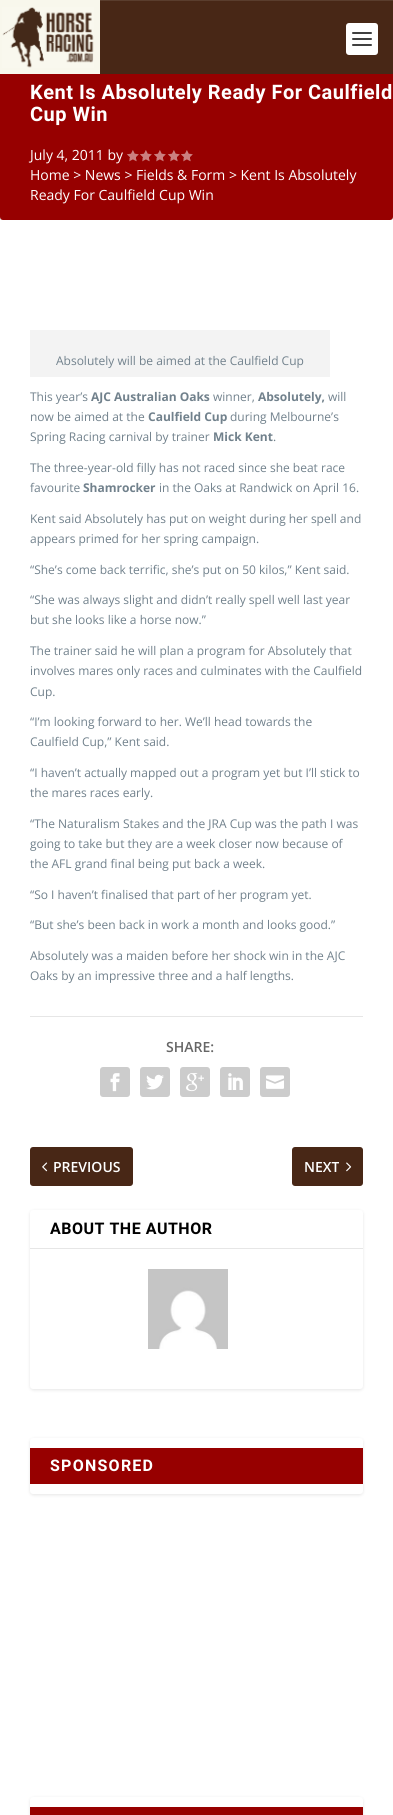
import math
import cairo

surface = cairo.ImageSurface(cairo.FORMAT_RGB24, 393, 1815)
ctx = cairo.Context(surface)
options = cairo.FontOptions()
options.set_hint_metrics(cairo.HINT_METRICS_OFF)
options.set_hint_style(cairo.HINT_STYLE_NONE)
ctx.set_font_options(options)
ctx.set_miter_limit(4)


def set_color(code):
    ctx.set_source_rgb(*(v / 255 for v in bytes.fromhex(code[-6:])))


def draw_text(x, y, s, family, size, color, bold=False, italic=False):
    ctx.select_font_face(family, cairo.FONT_SLANT_ITALIC if italic else cairo.FONT_SLANT_NORMAL, cairo.FONT_WEIGHT_BOLD if bold else cairo.FONT_WEIGHT_NORMAL)
    ctx.set_font_size(size)
    set_color(color)
    ctx.move_to(x, y)
    ctx.show_text(s)


def draw_spaced(x, y, s, letter, word):
    ctx.move_to(x, y)
    for ch in s:
        ctx.show_text(ch)
        ctx.rel_move_to(letter + word * (ch == ' '), 0)


def fill_rect(x, y, w, h, color):
    set_color(color)
    ctx.rectangle(x, y, w, h)
    ctx.fill()


def rounded_rect(x, y, w, h, r):
    ctx.new_sub_path()
    for i, (u, v) in enumerate([(x + w - r, y + h - r), (x + r, y + h - r), (x + r, y + r), (x + w - r, y + r)]):
        ctx.arc(u, v, r, i * math.pi / 2, (i + 1) * math.pi / 2)
    ctx.close_path()


def draw_shadow(x, y, w, h, r, blur, alpha):
    ctx.push_group_with_content(cairo.CONTENT_ALPHA)
    ctx.set_operator(cairo.OPERATOR_SOURCE)
    for i in range(15, -16, -2):
        e = blur * i / 6
        if min(w, h) + 2 * e > 0:
            ctx.set_source_rgba(0, 0, 0, alpha * math.erfc((i - 1) / 8.5) / 2)
            rounded_rect(x - e, y - e, w + 2 * e, h + 2 * e, max(0, min(r + e + blur * .6, min(w, h) / 2 + e)))
            ctx.fill()
    ctx.mask(ctx.pop_group())


def draw_image(path, x, y, w, h):
    ctx.save()
    ctx.set_source_surface(cairo.ImageSurface.create_from_png(path), x, y)
    ctx.rectangle(x, y, w, h)
    ctx.fill()
    ctx.restore()


set_color("#f6f6f6")
ctx.paint()
set_color("#000000")
draw_shadow(-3, 236, 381, 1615, 0, 12, 0.75)
set_color("#970000")
rounded_rect(0, 46, 393, 174, 3)
ctx.fill()
fill_rect(100, 1, 293, 73, "#482716")
fill_rect(0, 0, 100, 74, "#f8f7ec")
draw_image("assets/img1.png", 2, 7, 92, 61)
fill_rect(100, 0, 293, 1, "#5a3d2d")
set_color("#ffffff")
rounded_rect(346, 23, 32, 32, 3)
ctx.fill()
set_color("#404040")
rounded_rect(352, 32, 20, 2, 1)
ctx.fill()
rounded_rect(352, 38, 20, 2, 1)
ctx.fill()
rounded_rect(352, 44, 20, 2, 1)
ctx.fill()
ctx.select_font_face("Roboto", cairo.FONT_SLANT_NORMAL, cairo.FONT_WEIGHT_BOLD)
ctx.set_font_size(20)
set_color("#ffffff")
draw_spaced(30, 99, "Kent Is Absolutely Ready For Caulfield", 0.5, 0)
draw_spaced(30, 121, "Cup Win", 0.5, 0)
draw_text(30, 160, "July 4, 2011 by", "Open Sans", 14, "#ffffff")
draw_image("assets/img2.png", 127, 150, 12, 12)
draw_image("assets/img2.png", 140, 150, 12, 12)
draw_image("assets/img2.png", 154, 150, 12, 12)
draw_image("assets/img2.png", 168, 150, 12, 12)
draw_image("assets/img2.png", 181, 150, 12, 12)
draw_text(30, 180, "Home > News > Fields & Form > Kent Is Absolutely", "Open Sans", 14, "#ffffff")
draw_text(30, 200, "Ready For Caulfield Cup Win", "Open Sans", 14, "#ffffff")
fill_rect(0, 220, 393, 1595, "#ffffff")
fill_rect(30, 330, 300, 47, "#f3f3f3")
draw_text(56, 365, "Absolutely will be aimed at the Caulfield Cup", "Open Sans", 12, "#71818c")
draw_text(30, 401, "This year’s", "Open Sans", 12, "#71818c")
draw_text(91, 401, "AJC Australian Oaks", "Open Sans", 12, "#71818c", bold=True)
draw_text(213, 401, "winner,", "Open Sans", 12, "#71818c")
draw_text(258, 401, "Absolutely,", "Open Sans", 12, "#71818c", bold=True)
draw_text(328, 401, "will", "Open Sans", 12, "#71818c")
draw_text(30, 421, "now be aimed at the", "Open Sans", 12, "#71818c")
draw_text(148, 421, "Caulfield Cup", "Open Sans", 12, "#71818c", bold=True)
draw_text(230, 421, "during Melbourne’s", "Open Sans", 12, "#71818c")
draw_text(30, 441, "Spring Racing carnival by trainer", "Open Sans", 12, "#71818c")
draw_text(213, 441, "Mick Kent", "Open Sans", 12, "#71818c", bold=True)
draw_text(273, 441, ".", "Open Sans", 12, "#71818c")
draw_text(30, 472, "The three-year-old filly has not raced since she beat race", "Open Sans", 12, "#71818c")
draw_text(30, 492, "favourite", "Open Sans", 12, "#71818c")
draw_text(83, 492, "Shamrocker", "Open Sans", 12, "#71818c", bold=True)
draw_text(159, 492, "in the Oaks at Randwick on April 16.", "Open Sans", 12, "#71818c")
draw_text(30, 523, "Kent said Absolutely has put on weight during her spell and", "Open Sans", 12, "#71818c")
draw_text(30, 543, "appears primed for her spring campaign.", "Open Sans", 12, "#71818c")
draw_text(30, 574, "“She’s come back terrific, she’s put on 50 kilos,” Kent said.", "Open Sans", 12, "#71818c")
draw_text(30, 604, "“She was always slight and didn’t really spell well last year", "Open Sans", 12, "#71818c")
draw_text(30, 624, "but she looks like a horse now.”", "Open Sans", 12, "#71818c")
draw_text(30, 655, "The trainer said he will plan a program for Absolutely that", "Open Sans", 12, "#71818c")
draw_text(30, 675, "involves mares only races and culminates with the Caulfield", "Open Sans", 12, "#71818c")
draw_text(30, 696, "Cup.", "Open Sans", 12, "#71818c")
draw_text(30, 726, "“I’m looking forward to her. We’ll head towards the", "Open Sans", 12, "#71818c")
draw_text(30, 746, "Caulfield Cup,” Kent said.", "Open Sans", 12, "#71818c")
draw_text(30, 777, "“I haven’t actually mapped out a program yet but I’ll stick to", "Open Sans", 12, "#71818c")
draw_text(30, 797, "the mares races early.", "Open Sans", 12, "#71818c")
draw_text(30, 828, "“The Naturalism Stakes and the JRA Cup was the path I was", "Open Sans", 12, "#71818c")
draw_text(30, 848, "going to take but they are a week closer now because of", "Open Sans", 12, "#71818c")
draw_text(30, 868, "the AFL grand final being put back a week.", "Open Sans", 12, "#71818c")
draw_text(30, 899, "“So I haven’t finalised that part of her program yet.", "Open Sans", 12, "#71818c")
draw_text(30, 929, "“But she’s been back in work a month and looks good.”", "Open Sans", 12, "#71818c")
draw_text(30, 960, "Absolutely was a maiden before her shock win in the AJC", "Open Sans", 12, "#71818c")
draw_text(30, 980, "Oaks by an impressive three and a half lengths.", "Open Sans", 12, "#71818c")
fill_rect(30, 1016, 333, 1, "#e6e6e6")
draw_text(166, 1052, "SHARE:", "Open Sans SemiBold", 14, "#666666")
set_color("#cccccc")
rounded_rect(100, 1067, 30, 30, 3)
ctx.fill()
draw_image("assets/img3.png", 110, 1073, 10, 19)
rounded_rect(140, 1067, 30, 30, 3)
ctx.fill()
draw_image("assets/img4.png", 146, 1074, 18, 16)
rounded_rect(180, 1067, 30, 30, 3)
ctx.fill()
draw_image("assets/img5.png", 186, 1073, 18, 19)
rounded_rect(220, 1067, 30, 30, 3)
ctx.fill()
draw_image("assets/img6.png", 228, 1073, 15, 17)
rounded_rect(260, 1067, 30, 30, 3)
ctx.fill()
draw_image("assets/img7.png", 266, 1075, 18, 14)
set_color("#482716")
rounded_rect(30, 1147, 103, 39, 3)
ctx.fill()
draw_image("assets/img8.png", 42, 1162, 6, 10)
draw_text(53, 1172, "PREVIOUS", "Open Sans SemiBold", 14, "#ffffff")
set_color("#482716")
rounded_rect(292, 1147, 71, 39, 3)
ctx.fill()
draw_text(304, 1172, "NEXT", "Open Sans SemiBold", 14, "#ffffff")
draw_image("assets/img9.png", 346, 1162, 6, 10)
set_color("#000000")
draw_shadow(30, 1211, 333, 179, 3, 1.5, 0.1)
set_color("#ffffff")
rounded_rect(30, 1210, 333, 179, 3)
ctx.fill()
fill_rect(30, 1248, 333, 1, "#e6e6e6")
ctx.select_font_face("Roboto", cairo.FONT_SLANT_NORMAL, cairo.FONT_WEIGHT_BOLD)
ctx.set_font_size(16)
set_color("#000000")
draw_spaced(50, 1234, "ABOUT THE AUTHOR", 0.5, 0)
draw_image("assets/img10.png", 148, 1269, 80, 80)
set_color("#000000")
draw_shadow(30, 1439, 333, 56, 3, 1.5, 0.1)
set_color("#ffffff")
rounded_rect(30, 1438, 333, 56, 3)
ctx.fill()
fill_rect(30, 1448, 333, 36, "#970000")
set_color("#ffffff")
draw_spaced(50, 1471, "SPONSORED", 1.25, 0)
set_color("#000000")
draw_shadow(30, 1798, 333, 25, 3, 1.5, 0.1)
set_color("#ffffff")
rounded_rect(30, 1797, 333, 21, 3)
ctx.fill()
fill_rect(30, 1807, 333, 8, "#970000")
surface.write_to_png("output.png")
